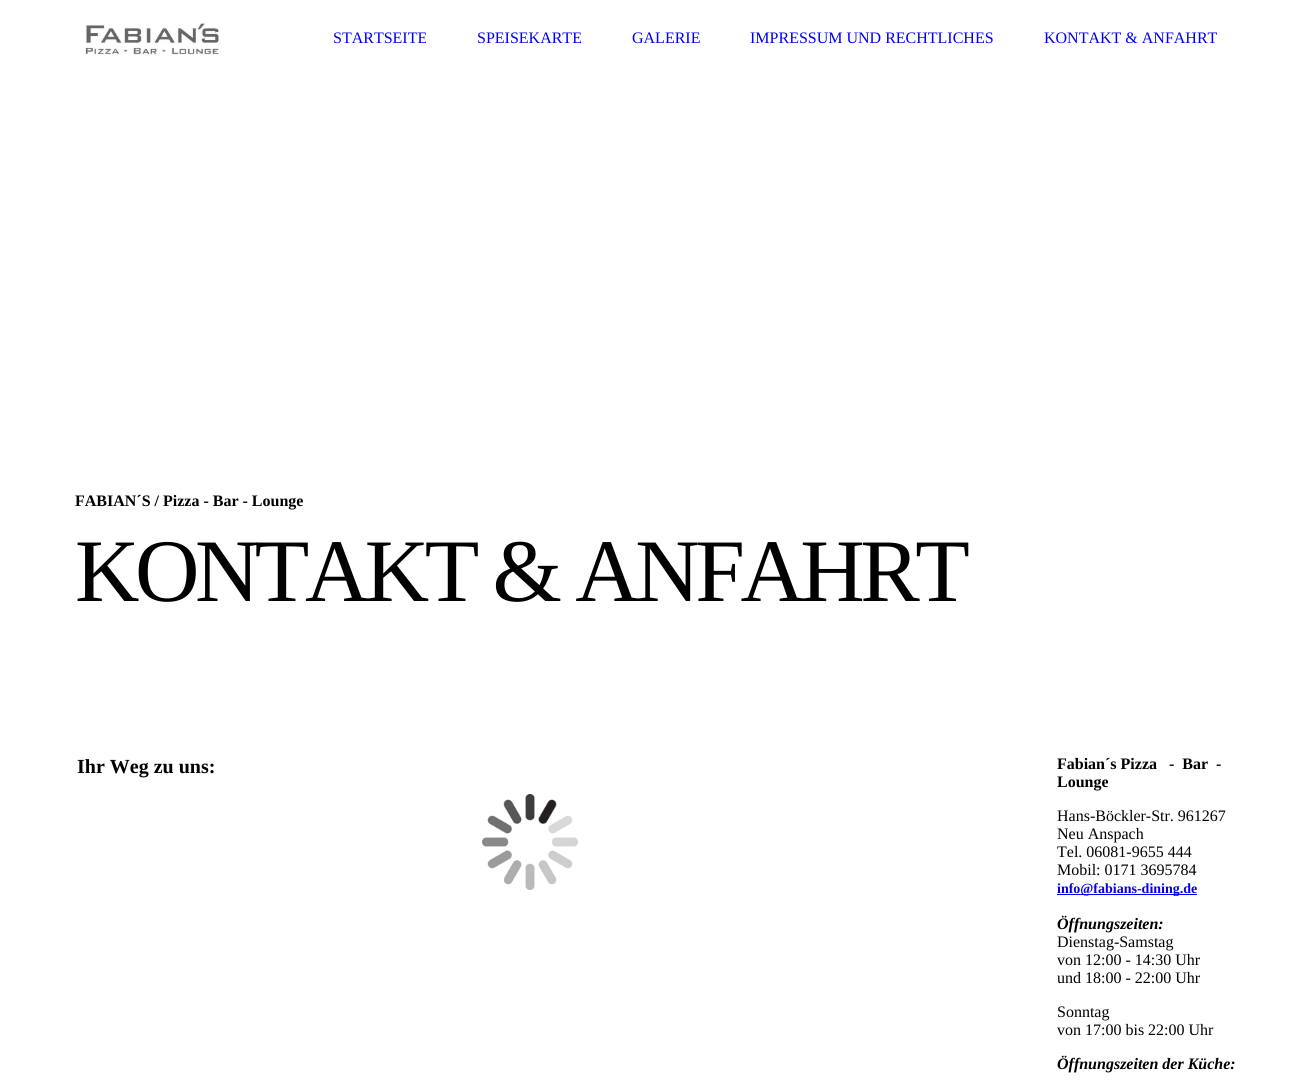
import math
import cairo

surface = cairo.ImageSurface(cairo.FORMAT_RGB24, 1314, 1084)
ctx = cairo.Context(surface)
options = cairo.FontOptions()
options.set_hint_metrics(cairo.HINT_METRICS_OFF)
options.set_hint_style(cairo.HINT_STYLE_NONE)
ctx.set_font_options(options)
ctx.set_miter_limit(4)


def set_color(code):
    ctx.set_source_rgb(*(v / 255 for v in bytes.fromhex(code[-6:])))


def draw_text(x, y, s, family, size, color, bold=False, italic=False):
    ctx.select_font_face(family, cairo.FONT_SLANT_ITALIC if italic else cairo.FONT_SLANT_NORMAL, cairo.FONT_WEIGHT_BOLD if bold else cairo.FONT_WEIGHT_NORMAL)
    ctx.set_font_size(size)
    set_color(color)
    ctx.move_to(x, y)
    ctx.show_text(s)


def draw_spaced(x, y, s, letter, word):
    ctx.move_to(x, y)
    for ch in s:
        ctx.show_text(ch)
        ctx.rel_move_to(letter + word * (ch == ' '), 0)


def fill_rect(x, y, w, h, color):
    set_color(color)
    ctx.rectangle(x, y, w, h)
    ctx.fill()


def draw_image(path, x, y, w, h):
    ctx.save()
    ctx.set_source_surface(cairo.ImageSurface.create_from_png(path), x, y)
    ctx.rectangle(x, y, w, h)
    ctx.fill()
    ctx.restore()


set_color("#ffffff")
ctx.paint()
draw_image("assets/img1.png", 85, 23, 134, 32)
draw_text(333, 43, "STARTSEITE", "Liberation Serif", 16, "#0000ee")
draw_text(477, 43, "SPEISEKARTE", "Liberation Serif", 16, "#0000ee")
draw_text(632, 43, "GALERIE", "Liberation Serif", 16, "#0000ee")
draw_text(750, 43, "IMPRESSUM UND RECHTLICHES", "Liberation Serif", 16, "#0000ee")
draw_text(1044, 43, "KONTAKT & ANFAHRT", "Liberation Serif", 16, "#0000ee")
draw_text(75, 506, "FABIAN´S / Pizza - Bar - Lounge", "Liberation Serif", 16, "#000000", bold=True)
ctx.select_font_face("Liberation Serif")
ctx.set_font_size(89.25)
draw_spaced(75, 601, "KONTAKT & ANFAHRT", -4.5, 0)
draw_text(77, 773, "Ihr Weg zu uns:", "Liberation Serif", 20, "#000000", bold=True)
draw_image("assets/img2.png", 482, 794, 96, 96)
draw_text(1057, 769, "Fabian´s Pizza", "Liberation Serif", 16, "#000000", bold=True)
draw_text(1169, 769, "-  Bar  -", "Liberation Serif", 16, "#000000", bold=True)
draw_text(1057, 787, "Lounge", "Liberation Serif", 16, "#000000", bold=True)
draw_text(1057, 821, "Hans-Böckler-Str. 961267", "Liberation Serif", 16, "#000000")
draw_text(1057, 839, "Neu Anspach", "Liberation Serif", 16, "#000000")
draw_text(1057, 857, "Tel. 06081-9655 444", "Liberation Serif", 16, "#000000")
draw_text(1057, 875, "Mobil: 0171 3695784", "Liberation Serif", 16, "#000000")
fill_rect(1057, 894, 140, 1, "#0000ee")
draw_text(1057, 893, "info@fabians-dining.de", "Liberation Serif", 14, "#0000ee", bold=True)
draw_text(1057, 929, "Öffnungszeiten:", "Liberation Serif", 16, "#000000", bold=True, italic=True)
draw_text(1057, 947, "Dienstag-Samstag", "Liberation Serif", 16, "#000000")
draw_text(1057, 965, "von 12:00 - 14:30 Uhr", "Liberation Serif", 16, "#000000")
draw_text(1057, 983, "und 18:00 - 22:00 Uhr", "Liberation Serif", 16, "#000000")
draw_text(1057, 1017, "Sonntag", "Liberation Serif", 16, "#000000")
draw_text(1057, 1035, "von 17:00 bis 22:00 Uhr", "Liberation Serif", 16, "#000000")
draw_text(1057, 1069, "Öffnungszeiten der Küche:", "Liberation Serif", 16, "#000000", bold=True, italic=True)
surface.write_to_png("output.png")
